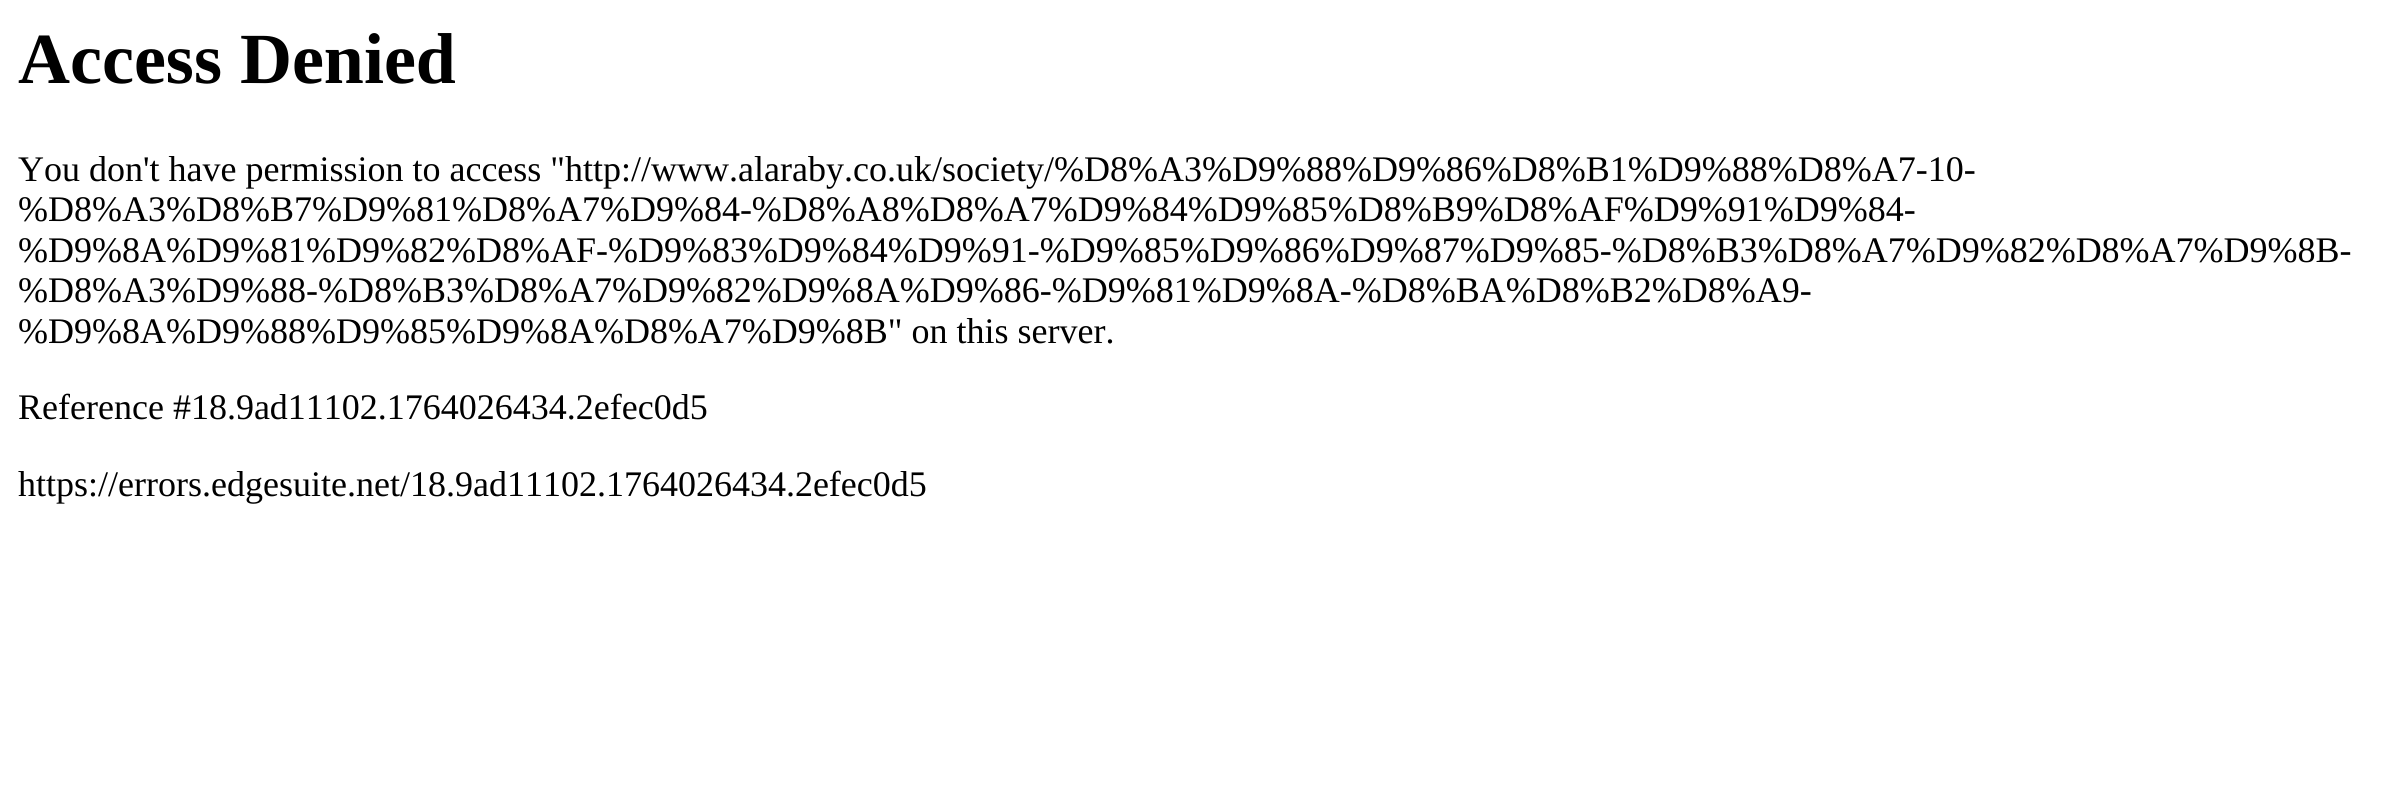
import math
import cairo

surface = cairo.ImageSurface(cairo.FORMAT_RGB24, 2384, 810)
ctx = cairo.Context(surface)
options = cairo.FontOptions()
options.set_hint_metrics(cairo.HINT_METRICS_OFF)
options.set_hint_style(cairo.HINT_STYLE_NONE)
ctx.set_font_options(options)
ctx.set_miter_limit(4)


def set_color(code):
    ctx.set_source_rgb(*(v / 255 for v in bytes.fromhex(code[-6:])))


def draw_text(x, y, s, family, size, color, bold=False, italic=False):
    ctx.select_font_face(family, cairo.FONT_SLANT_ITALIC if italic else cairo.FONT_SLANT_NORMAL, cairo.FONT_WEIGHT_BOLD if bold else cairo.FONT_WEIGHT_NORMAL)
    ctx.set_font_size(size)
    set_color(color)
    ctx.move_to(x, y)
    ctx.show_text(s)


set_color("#ffffff")
ctx.paint()
draw_text(18, 83, "Access Denied", "Liberation Serif", 72, "#000000", bold=True)
draw_text(18, 181, "You don't have permission to access \"http://www.alaraby.co.uk/society/%D8%A3%D9%88%D9%86%D8%B1%D9%88%D8%A7-10-", "Liberation Serif", 36, "#000000")
draw_text(18, 221, "%D8%A3%D8%B7%D9%81%D8%A7%D9%84-%D8%A8%D8%A7%D9%84%D9%85%D8%B9%D8%AF%D9%91%D9%84-", "Liberation Serif", 36, "#000000")
draw_text(18, 262, "%D9%8A%D9%81%D9%82%D8%AF-%D9%83%D9%84%D9%91-%D9%85%D9%86%D9%87%D9%85-%D8%B3%D8%A7%D9%82%D8%A7%D9%8B-", "Liberation Serif", 36, "#000000")
draw_text(18, 302, "%D8%A3%D9%88-%D8%B3%D8%A7%D9%82%D9%8A%D9%86-%D9%81%D9%8A-%D8%BA%D8%B2%D8%A9-", "Liberation Serif", 36, "#000000")
draw_text(18, 343, "%D9%8A%D9%88%D9%85%D9%8A%D8%A7%D9%8B\" on this server.", "Liberation Serif", 36, "#000000")
draw_text(18, 419, "Reference #18.9ad11102.1764026434.2efec0d5", "Liberation Serif", 36, "#000000")
draw_text(18, 496, "https://errors.edgesuite.net/18.9ad11102.1764026434.2efec0d5", "Liberation Serif", 36, "#000000")
surface.write_to_png("output.png")
